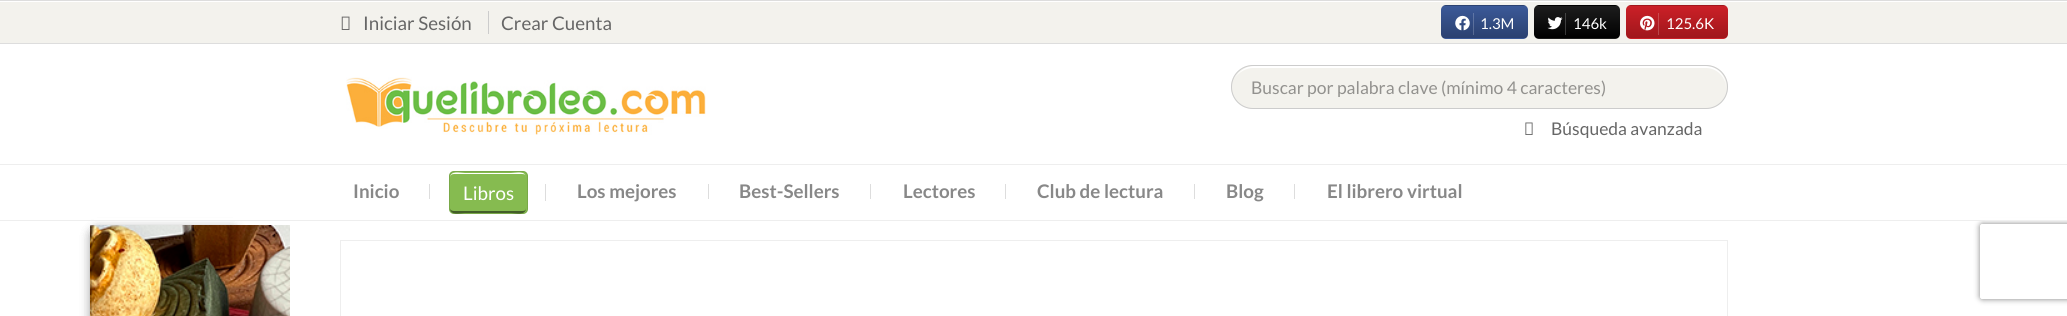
import math
import cairo

surface = cairo.ImageSurface(cairo.FORMAT_RGB24, 2067, 316)
ctx = cairo.Context(surface)
options = cairo.FontOptions()
options.set_hint_metrics(cairo.HINT_METRICS_OFF)
options.set_hint_style(cairo.HINT_STYLE_NONE)
ctx.set_font_options(options)
ctx.set_miter_limit(4)


def set_color(code):
    ctx.set_source_rgb(*(v / 255 for v in bytes.fromhex(code[-6:])))


def draw_text(x, y, s, family, size, color, bold=False, italic=False):
    ctx.select_font_face(family, cairo.FONT_SLANT_ITALIC if italic else cairo.FONT_SLANT_NORMAL, cairo.FONT_WEIGHT_BOLD if bold else cairo.FONT_WEIGHT_NORMAL)
    ctx.set_font_size(size)
    set_color(color)
    ctx.move_to(x, y)
    ctx.show_text(s)


def fill_rect(x, y, w, h, color):
    set_color(color)
    ctx.rectangle(x, y, w, h)
    ctx.fill()


def rounded_rect(x, y, w, h, r):
    ctx.new_sub_path()
    for i, (u, v) in enumerate([(x + w - r, y + h - r), (x + r, y + h - r), (x + r, y + r), (x + w - r, y + r)]):
        ctx.arc(u, v, r, i * math.pi / 2, (i + 1) * math.pi / 2)
    ctx.close_path()


def draw_shadow(x, y, w, h, r, blur, alpha):
    ctx.push_group_with_content(cairo.CONTENT_ALPHA)
    ctx.set_operator(cairo.OPERATOR_SOURCE)
    for i in range(15, -16, -2):
        e = blur * i / 6
        if min(w, h) + 2 * e > 0:
            ctx.set_source_rgba(0, 0, 0, alpha * math.erfc((i - 1) / 8.5) / 2)
            rounded_rect(x - e, y - e, w + 2 * e, h + 2 * e, max(0, min(r + e + blur * .6, min(w, h) / 2 + e)))
            ctx.fill()
    ctx.mask(ctx.pop_group())


def draw_image(path, x, y, w, h):
    ctx.save()
    ctx.set_source_surface(cairo.ImageSurface.create_from_png(path), x, y)
    ctx.rectangle(x, y, w, h)
    ctx.fill()
    ctx.restore()


set_color("#ffffff")
ctx.paint()
set_color("#000000")
draw_shadow(90, 228, 150, 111, 8, 5, 0.2)
draw_image("assets/img7.png", 90, 225, 200, 91)
draw_shadow(90, 228, 150, 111, 8, 5, 0.2)
ctx.save()
ctx.set_fill_rule(cairo.FILL_RULE_EVEN_ODD)
ctx.new_path()
ctx.move_to(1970, 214)
ctx.line_to(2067, 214)
ctx.line_to(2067, 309)
ctx.line_to(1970, 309)
ctx.close_path()
ctx.move_to(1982.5, 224)
ctx.line_to(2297.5, 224)
ctx.curve_to(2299, 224, 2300, 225, 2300, 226.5)
ctx.line_to(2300, 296.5)
ctx.curve_to(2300, 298, 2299, 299, 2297.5, 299)
ctx.line_to(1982.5, 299)
ctx.curve_to(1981, 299, 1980, 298, 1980, 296.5)
ctx.line_to(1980, 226.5)
ctx.curve_to(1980, 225, 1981, 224, 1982.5, 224)
ctx.close_path()
ctx.clip()
set_color("#808080")
draw_shadow(1980, 224, 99, 75, 2.5, 3, 1)
ctx.restore()
fill_rect(94, 218, 1973, 2, "#ffffff")
fill_rect(0, 2, 2067, 41, "#f3f2ed")
fill_rect(0, 0, 2067, 1, "#dddddd")
fill_rect(0, 43, 2067, 1, "#dddddd")
fill_rect(488, 11, 1, 23, "#cccccc")
draw_image("assets/img1.png", 341, 16, 9, 14)
draw_text(363, 30, "Iniciar Sesión", "Lato", 18.75, "#666666")
draw_text(501, 30, "Crear Cuenta", "Lato", 18.75, "#666666")
ctx.save()
rounded_rect(1441, 5, 87, 34, 5)
ctx.clip()
gradient = cairo.LinearGradient(1484, -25, 1484, 6.3)
gradient.add_color_stop_rgba(0, 0.231, 0.349, 0.596, 1)
gradient.add_color_stop_rgba(1, 0.169, 0.255, 0.439, 1)
ctx.set_source(gradient)
ctx.rectangle(1441, 5, 87, 1)
ctx.fill()
gradient = cairo.LinearGradient(1484, 6.2, 1484, 38)
gradient.add_color_stop_rgba(0, 0.231, 0.349, 0.596, 1)
gradient.add_color_stop_rgba(1, 0.169, 0.255, 0.439, 1)
ctx.set_source(gradient)
ctx.rectangle(1441, 6, 87, 32)
ctx.fill()
ctx.restore()
gradient = cairo.LinearGradient(1484, 6.2, 1484, 38)
gradient.add_color_stop_rgba(0, 0.384, 0.478, 0.678, 1)
gradient.add_color_stop_rgba(1, 0.333, 0.404, 0.553, 1)
ctx.set_source(gradient)
ctx.rectangle(1473, 13, 1, 22)
ctx.fill()
ctx.save()
rounded_rect(1441, 5, 87, 34, 5)
ctx.clip()
gradient = cairo.LinearGradient(1484, 37, 1484, 69)
gradient.add_color_stop_rgba(0, 0.231, 0.349, 0.596, 1)
gradient.add_color_stop_rgba(1, 0.169, 0.255, 0.439, 1)
ctx.set_source(gradient)
ctx.rectangle(1441, 38, 87, 1)
ctx.fill()
ctx.restore()
draw_image("assets/img2.png", 1455, 15, 15, 16)
draw_text(1480, 29, "1.3M", "Lato", 15, "#ffffff")
ctx.save()
rounded_rect(1534, 5, 86, 34, 5)
ctx.clip()
gradient = cairo.LinearGradient(1577, -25, 1577, 6.3)
gradient.add_color_stop_rgba(0, 0.114, 0.114, 0.114, 1)
gradient.add_color_stop_rgba(1, 0, 0, 0, 1)
ctx.set_source(gradient)
ctx.rectangle(1534, 5, 86, 1)
ctx.fill()
gradient = cairo.LinearGradient(1577, 6.2, 1577, 38)
gradient.add_color_stop_rgba(0, 0.114, 0.114, 0.114, 1)
gradient.add_color_stop_rgba(1, 0, 0, 0, 1)
ctx.set_source(gradient)
ctx.rectangle(1534, 6, 86, 32)
ctx.fill()
ctx.restore()
gradient = cairo.LinearGradient(1577, 6.2, 1577, 38)
gradient.add_color_stop_rgba(0, 0.29, 0.29, 0.29, 1)
gradient.add_color_stop_rgba(1, 0.2, 0.2, 0.2, 1)
ctx.set_source(gradient)
ctx.rectangle(1565, 13, 1, 22)
ctx.fill()
ctx.save()
rounded_rect(1534, 5, 86, 34, 5)
ctx.clip()
gradient = cairo.LinearGradient(1577, 37, 1577, 69)
gradient.add_color_stop_rgba(0, 0.114, 0.114, 0.114, 1)
gradient.add_color_stop_rgba(1, 0, 0, 0, 1)
ctx.set_source(gradient)
ctx.rectangle(1534, 38, 86, 1)
ctx.fill()
ctx.restore()
draw_image("assets/img3.png", 1547, 17, 16, 13)
draw_text(1573, 29, "146k", "Lato", 15, "#ffffff")
ctx.save()
rounded_rect(1626, 5, 102, 34, 5)
ctx.clip()
gradient = cairo.LinearGradient(1677, -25, 1677, 6.3)
gradient.add_color_stop_rgba(0, 0.796, 0.125, 0.153, 1)
gradient.add_color_stop_rgba(1, 0.627, 0.09, 0.11, 1)
ctx.set_source(gradient)
ctx.rectangle(1626, 5, 102, 1)
ctx.fill()
gradient = cairo.LinearGradient(1677, 6.2, 1677, 38)
gradient.add_color_stop_rgba(0, 0.796, 0.125, 0.153, 1)
gradient.add_color_stop_rgba(1, 0.627, 0.09, 0.11, 1)
ctx.set_source(gradient)
ctx.rectangle(1626, 6, 102, 32)
ctx.fill()
ctx.restore()
gradient = cairo.LinearGradient(1677, 6.2, 1677, 38)
gradient.add_color_stop_rgba(0, 0.835, 0.302, 0.322, 1)
gradient.add_color_stop_rgba(1, 0.702, 0.271, 0.286, 1)
ctx.set_source(gradient)
ctx.rectangle(1658, 13, 1, 22)
ctx.fill()
ctx.save()
rounded_rect(1626, 5, 102, 34, 5)
ctx.clip()
gradient = cairo.LinearGradient(1677, 37, 1677, 69)
gradient.add_color_stop_rgba(0, 0.796, 0.125, 0.153, 1)
gradient.add_color_stop_rgba(1, 0.627, 0.09, 0.11, 1)
ctx.set_source(gradient)
ctx.rectangle(1626, 38, 102, 1)
ctx.fill()
ctx.restore()
draw_image("assets/img4.png", 1640, 15, 15, 16)
draw_text(1666, 29, "125.6K", "Lato", 15, "#ffffff")
draw_image("assets/img5.png", 346, 77, 360, 58)
set_color("#f3f2ed")
rounded_rect(1231, 65, 497, 44, 22)
ctx.fill()
set_color("#ffffff")
ctx.new_path()
ctx.move_to(1253, 68)
ctx.line_to(1706, 68)
ctx.curve_to(1717, 68, 1726, 77, 1726, 88)
ctx.line_to(1726, 87)
ctx.curve_to(1726, 75, 1717, 66, 1705, 66)
ctx.line_to(1254, 66)
ctx.curve_to(1246, 66, 1239, 71, 1235, 78)
ctx.curve_to(1239, 72, 1246, 68, 1253, 68)
ctx.close_path()
ctx.fill()
rounded_rect(1231.5, 65.5, 496, 43, 21.5)
set_color("#cccccc")
ctx.set_line_width(1)
ctx.stroke()
draw_text(1251, 94, "Buscar por palabra clave (mínimo 4 caracteres)", "Lato", 17.5, "#92918e")
draw_image("assets/img6.png", 1525, 122, 8, 13)
draw_text(1551, 135, "Búsqueda avanzada", "Lato", 17.5, "#666666")
fill_rect(0, 164, 2067, 1, "#eeeeee")
fill_rect(0, 220, 1985, 1, "#eeeeee")
draw_text(353, 198, "Inicio", "Lato", 18.75, "#888888", bold=True)
fill_rect(429, 184, 1, 15, "#dddddd")
set_color("#86bb50")
rounded_rect(449, 171, 79, 43, 5)
ctx.fill()
set_color("#ffffff")
ctx.new_path()
ctx.move_to(454, 174)
ctx.line_to(522, 174)
ctx.curve_to(525, 174, 526, 175, 526, 178)
ctx.curve_to(526, 170, 516, 173, 511, 173)
ctx.line_to(465, 173)
ctx.curve_to(460, 173, 450, 170, 450, 178)
ctx.curve_to(450, 175, 452, 174, 454, 174)
ctx.close_path()
ctx.fill()
set_color("#435e28")
ctx.new_path()
ctx.move_to(450, 208)
ctx.curve_to(450, 216, 460, 213, 465, 213)
ctx.line_to(511, 213)
ctx.curve_to(516, 213, 526, 216, 526, 208)
ctx.curve_to(526, 210, 525, 211, 522, 211)
ctx.line_to(454, 211)
ctx.curve_to(452, 211, 450, 210, 450, 208)
ctx.close_path()
ctx.fill()
rounded_rect(449.5, 171.5, 78, 42, 4.5)
ctx.set_source_rgba(0, 0, 0, 0.1)
ctx.stroke()
draw_text(463, 200, "Libros", "Lato", 18.75, "#ffffff")
fill_rect(545, 184, 1, 17, "#dddddd")
draw_text(577, 198, "Los mejores", "Lato", 18.75, "#888888", bold=True)
fill_rect(708, 184, 1, 15, "#dddddd")
draw_text(739, 198, "Best-Sellers", "Lato", 18.75, "#888888", bold=True)
fill_rect(870, 184, 1, 15, "#dddddd")
draw_text(903, 198, "Lectores", "Lato", 18.75, "#888888", bold=True)
fill_rect(1005, 184, 1, 15, "#dddddd")
draw_text(1037, 198, "Club de lectura", "Lato", 18.75, "#888888", bold=True)
fill_rect(1194, 184, 1, 15, "#dddddd")
draw_text(1226, 198, "Blog", "Lato", 18.75, "#888888", bold=True)
fill_rect(1294, 184, 1, 15, "#dddddd")
draw_text(1327, 198, "El librero virtual", "Lato", 18.75, "#888888", bold=True)
draw_image("assets/img8.png", 92, 225, 154, 91)
ctx.rectangle(340.5, 240.5, 1387, 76)
set_color("#eeeeee")
ctx.stroke()
surface.write_to_png("output.png")
